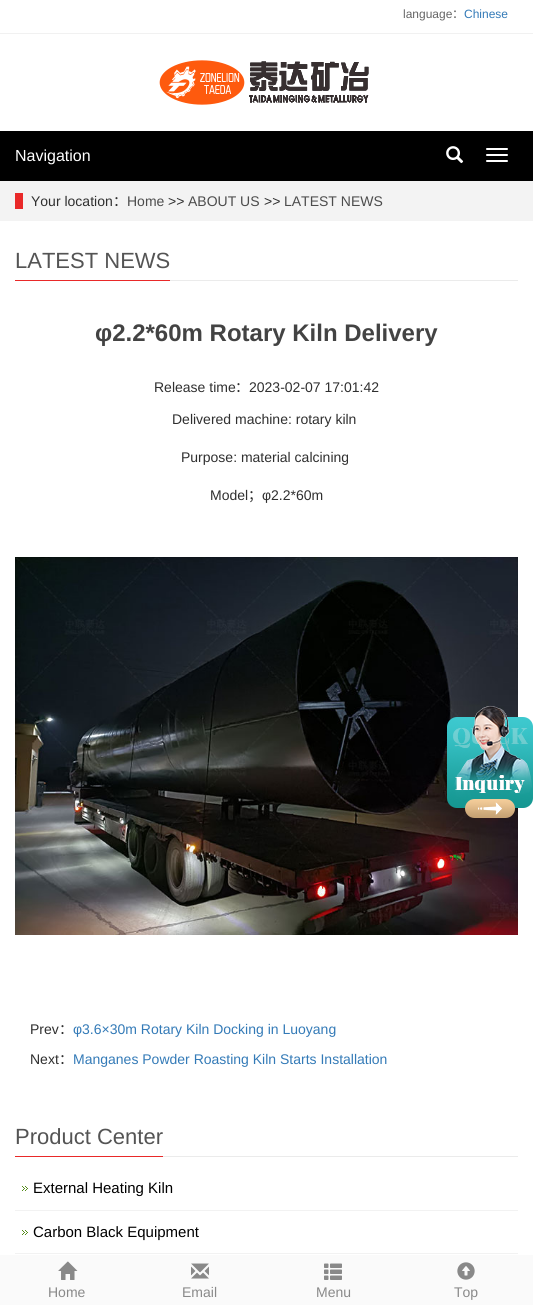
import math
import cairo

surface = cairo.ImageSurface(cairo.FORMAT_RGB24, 533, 1305)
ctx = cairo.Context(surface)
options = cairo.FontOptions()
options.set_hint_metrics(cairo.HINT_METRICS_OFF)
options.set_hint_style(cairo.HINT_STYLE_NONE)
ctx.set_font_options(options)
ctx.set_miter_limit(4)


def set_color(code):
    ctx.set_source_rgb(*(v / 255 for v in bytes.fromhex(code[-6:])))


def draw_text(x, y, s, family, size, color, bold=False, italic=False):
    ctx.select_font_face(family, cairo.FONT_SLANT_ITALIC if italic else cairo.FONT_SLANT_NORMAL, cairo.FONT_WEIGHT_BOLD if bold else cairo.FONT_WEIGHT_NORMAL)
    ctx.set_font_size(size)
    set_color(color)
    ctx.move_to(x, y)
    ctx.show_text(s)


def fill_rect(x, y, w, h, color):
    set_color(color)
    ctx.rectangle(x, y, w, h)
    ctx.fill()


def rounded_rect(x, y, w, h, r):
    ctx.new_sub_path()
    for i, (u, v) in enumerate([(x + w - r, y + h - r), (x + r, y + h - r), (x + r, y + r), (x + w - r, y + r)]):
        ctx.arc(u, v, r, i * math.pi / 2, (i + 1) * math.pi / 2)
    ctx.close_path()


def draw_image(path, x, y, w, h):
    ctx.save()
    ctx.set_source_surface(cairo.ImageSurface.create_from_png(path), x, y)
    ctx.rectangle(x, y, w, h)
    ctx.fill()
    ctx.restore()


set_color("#ffffff")
ctx.paint()
fill_rect(0, 33, 533, 1, "#f1f1f1")
draw_text(403, 18, "language", "Liberation Sans", 12, "#666666")
draw_text(452, 18, "：", "Noto Sans CJK SC", 12, "#666666")
draw_text(464, 18, "Chinese", "Liberation Sans", 12, "#337ab7")
draw_image("assets/img1.png", 159, 60, 210, 45)
fill_rect(0, 131, 533, 50, "#000000")
draw_text(15, 161, "Navigation", "Liberation Sans", 16, "#ffffff")
draw_image("assets/img2.png", 446, 146, 18, 18)
rounded_rect(486, 148, 22, 2, 1)
ctx.fill()
rounded_rect(486, 154, 22, 2, 1)
ctx.fill()
rounded_rect(486, 160, 22, 2, 1)
ctx.fill()
fill_rect(0, 181, 533, 40, "#f3f3f3")
draw_text(31, 206, "Your location", "Liberation Sans", 14, "#2f2f2f")
fill_rect(15, 193, 8, 16, "#e92929")
draw_text(113, 206, "：", "Noto Sans CJK SC", 14, "#2f2f2f")
draw_text(127, 206, "Home", "Liberation Sans", 14, "#4c4c4c")
draw_text(168, 206, ">>", "Liberation Sans", 14, "#2f2f2f")
draw_text(188, 206, "ABOUT US", "Liberation Sans", 14, "#4c4c4c")
draw_text(264, 206, ">>", "Liberation Sans", 14, "#2f2f2f")
draw_text(284, 206, "LATEST NEWS", "Liberation Sans", 14, "#4c4c4c")
fill_rect(170, 280, 348, 1, "#ebebeb")
fill_rect(15, 280, 155, 1, "#e92929")
draw_text(15, 268, "LATEST NEWS", "Liberation Sans", 22, "#545454")
draw_text(95, 341, "φ2.2*60m Rotary Kiln Delivery", "Liberation Sans", 24, "#434343", bold=True)
draw_text(154, 392, "Release time", "Liberation Sans", 14, "#2f2f2f")
draw_text(235, 392, "：", "Noto Sans CJK SC", 14, "#2f2f2f")
draw_text(249, 392, "2023-02-07 17:01:42", "Liberation Sans", 14, "#2f2f2f")
draw_text(172, 424, "Delivered machine: rotary kiln", "Liberation Sans", 14, "#2f2f2f")
draw_text(181, 462, "Purpose: material calcining", "Liberation Sans", 14, "#2f2f2f")
draw_text(210, 500, "Model", "Liberation Sans", 14, "#2f2f2f")
draw_text(248, 500, "；", "Noto Sans CJK SC", 14, "#2f2f2f")
draw_text(262, 500, "φ2.2*60m", "Liberation Sans", 14, "#2f2f2f")
draw_image("assets/img3.png", 15, 557, 503, 378)
draw_text(30, 1034, "Prev", "Liberation Sans", 14, "#2f2f2f")
draw_text(59, 1034, "：", "Noto Sans CJK SC", 14, "#2f2f2f")
draw_text(73, 1034, "φ3.6×30m Rotary Kiln Docking in Luoyang", "Liberation Sans", 14, "#337ab7")
draw_text(30, 1064, "Next", "Liberation Sans", 14, "#2f2f2f")
draw_text(59, 1064, "：", "Noto Sans CJK SC", 14, "#2f2f2f")
draw_text(73, 1064, "Manganes Powder Roasting Kiln Starts Installation", "Liberation Sans", 14, "#337ab7")
fill_rect(163, 1156, 355, 1, "#ebebeb")
fill_rect(15, 1156, 148, 1, "#e92929")
draw_text(15, 1144, "Product Center", "Liberation Sans", 22, "#545454")
draw_image("assets/img4.png", 22, 1186, 6, 5)
fill_rect(15, 1210, 503, 1, "#f2f2f2")
draw_text(33, 1193, "External Heating Kiln", "Liberation Sans", 15, "#000000")
draw_image("assets/img4.png", 22, 1230, 6, 5)
fill_rect(15, 1253, 503, 1, "#f2f2f2")
draw_text(33, 1237, "Carbon Black Equipment", "Liberation Sans", 15, "#000000")
draw_image("assets/img5.png", 447, 705, 86, 113)
fill_rect(0, 1255, 533, 50, "#fafafa")
draw_image("assets/img6.png", 58, 1261, 20, 19)
draw_text(48, 1297, "Home", "Liberation Sans", 14, "#898989")
draw_image("assets/img7.png", 191, 1263, 18, 16)
draw_text(182, 1297, "Email", "Liberation Sans", 14, "#898989")
draw_image("assets/img8.png", 324, 1263, 18, 17)
draw_text(316, 1297, "Menu", "Liberation Sans", 14, "#898989")
draw_image("assets/img9.png", 457, 1262, 18, 18)
draw_text(454, 1297, "Top", "Liberation Sans", 14, "#898989")
surface.write_to_png("output.png")
